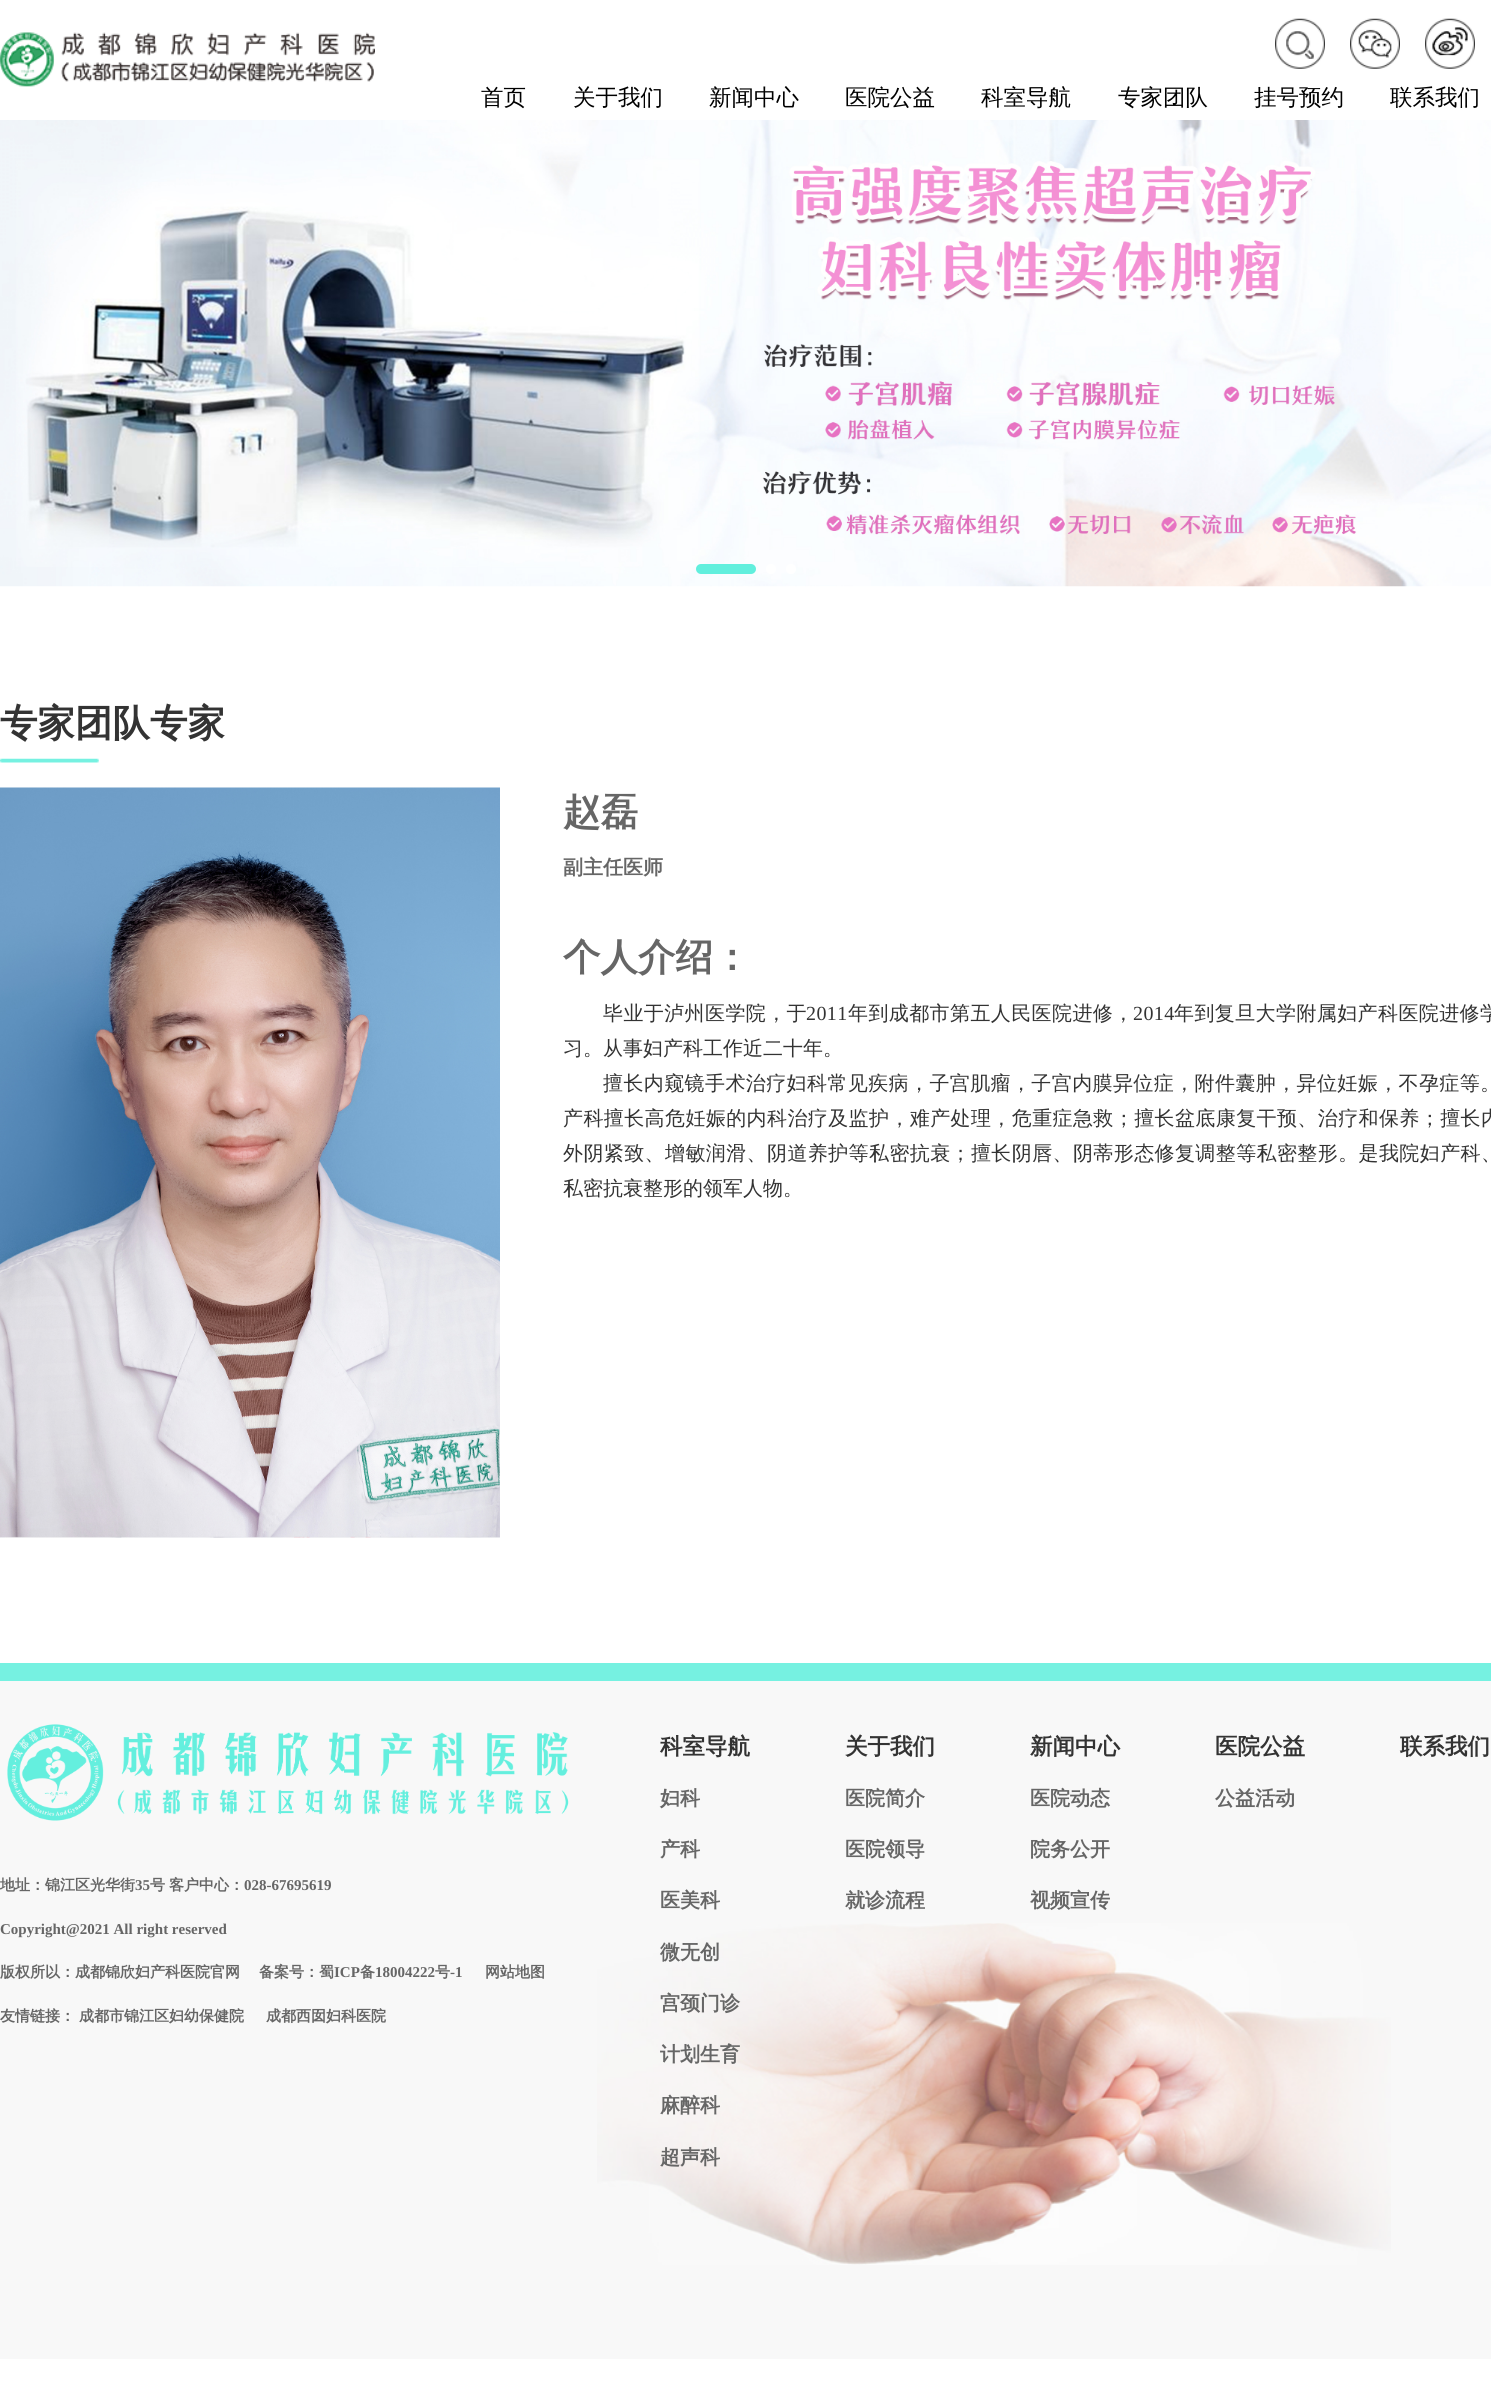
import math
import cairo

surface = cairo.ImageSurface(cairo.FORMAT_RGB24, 1491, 2405)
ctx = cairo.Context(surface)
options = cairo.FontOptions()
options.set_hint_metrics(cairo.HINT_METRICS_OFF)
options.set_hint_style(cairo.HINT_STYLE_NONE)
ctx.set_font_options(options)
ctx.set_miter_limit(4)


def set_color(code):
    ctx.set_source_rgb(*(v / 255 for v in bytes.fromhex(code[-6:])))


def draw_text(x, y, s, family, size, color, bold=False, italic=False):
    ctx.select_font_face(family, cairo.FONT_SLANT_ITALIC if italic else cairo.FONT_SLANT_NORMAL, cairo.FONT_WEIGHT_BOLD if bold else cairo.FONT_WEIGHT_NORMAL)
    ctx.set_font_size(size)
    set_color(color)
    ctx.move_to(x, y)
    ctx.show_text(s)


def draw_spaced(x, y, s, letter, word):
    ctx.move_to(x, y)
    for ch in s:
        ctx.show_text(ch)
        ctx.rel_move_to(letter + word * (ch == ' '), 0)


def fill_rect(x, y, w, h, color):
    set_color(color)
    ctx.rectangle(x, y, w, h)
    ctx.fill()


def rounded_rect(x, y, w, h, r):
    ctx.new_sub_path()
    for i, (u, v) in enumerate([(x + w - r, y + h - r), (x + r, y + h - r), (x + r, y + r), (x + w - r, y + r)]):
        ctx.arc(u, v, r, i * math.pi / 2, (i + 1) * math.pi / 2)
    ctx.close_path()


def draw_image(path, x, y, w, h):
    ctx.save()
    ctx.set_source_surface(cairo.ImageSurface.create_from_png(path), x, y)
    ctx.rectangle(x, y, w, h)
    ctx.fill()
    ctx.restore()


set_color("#ffffff")
ctx.paint()
draw_image("assets/img1.png", 0, 32, 375, 55)
draw_image("assets/img2.png", 1275, 18, 50, 51)
draw_image("assets/img3.png", 1350, 18, 50, 51)
draw_image("assets/img4.png", 1425, 18, 50, 51)
draw_text(481, 105, "首页", "WenQuanYi Zen Hei Medium", 22.5, "#000000")
draw_text(573, 105, "关于我们", "WenQuanYi Zen Hei Medium", 22.5, "#000000")
draw_text(709, 105, "新闻中心", "WenQuanYi Zen Hei Medium", 22.5, "#000000")
draw_text(845, 105, "医院公益", "WenQuanYi Zen Hei Medium", 22.5, "#000000")
draw_text(981, 105, "科室导航", "WenQuanYi Zen Hei Medium", 22.5, "#000000")
draw_text(1118, 105, "专家团队", "WenQuanYi Zen Hei Medium", 22.5, "#000000")
draw_text(1254, 105, "挂号预约", "WenQuanYi Zen Hei Medium", 22.5, "#000000")
draw_text(1390, 105, "联系我们", "WenQuanYi Zen Hei Medium", 22.5, "#000000")
draw_image("assets/img5.png", 0, 120, 1491, 467)
set_color("#61efdd")
rounded_rect(696, 564, 60, 10, 5)
ctx.fill()
set_color("#ffffff")
ctx.arc(771, 569, 5, 0, 2 * math.pi)
ctx.fill()
ctx.arc(791, 569, 5, 0, 2 * math.pi)
ctx.fill()
draw_image("assets/img6.png", 0, 758, 99, 5)
draw_text(0, 736, "专家团队专家", "WenQuanYi Zen Hei", 37.5, "#333333", bold=True)
draw_image("assets/img7.png", 0, 787, 500, 751)
draw_text(563, 825, "赵磊", "WenQuanYi Zen Hei", 37.5, "#666666", bold=True)
draw_text(563, 874, "副主任医师", "WenQuanYi Zen Hei", 20, "#666666", bold=True)
draw_text(563, 970, "个人介绍：", "WenQuanYi Zen Hei", 37.5, "#666666", bold=True)
ctx.select_font_face("WenQuanYi Zen Hei Medium")
ctx.set_font_size(20)
set_color("#333333")
draw_spaced(603, 1020, "毕业于泸州医学院，于", 0.4, 0)
ctx.select_font_face("Liberation Serif")
draw_spaced(806, 1020, "2011", 0.4, 0)
ctx.select_font_face("WenQuanYi Zen Hei Medium")
draw_spaced(848, 1020, "年到成都市第五人民医院进修，", 0.4, 0)
ctx.select_font_face("Liberation Serif")
draw_spaced(1133, 1020, "2014", 0.4, 0)
ctx.select_font_face("WenQuanYi Zen Hei Medium")
draw_spaced(1174, 1020, "年到复旦大学附属妇产科医院进修学", 0.4, 0)
draw_text(563, 1055, "习。从事妇产科工作近二十年。", "WenQuanYi Zen Hei Medium", 20, "#333333")
draw_spaced(603, 1090, "擅长内窥镜手术治疗妇科常见疾病，子宫肌瘤，子宫内膜异位症，附件囊肿，异位妊娠，不孕症等。", 0.4, 0)
draw_spaced(563, 1125, "产科擅长高危妊娠的内科治疗及监护，难产处理，危重症急救；擅长盆底康复干预、治疗和保养；擅长内", 0.4, 0)
draw_spaced(563, 1160, "外阴紧致、增敏润滑、阴道养护等私密抗衰；擅长阴唇、阴蒂形态修复调整等私密整形。是我院妇产科、", 0.4, 0)
draw_text(563, 1195, "私密抗衰整形的领军人物。", "WenQuanYi Zen Hei Medium", 20, "#333333")
fill_rect(0, 1681, 1491, 678, "#f8f8f8")
draw_image("assets/img8.png", 597, 1923, 794, 342)
fill_rect(0, 1663, 1491, 18, "#76f1e1")
draw_text(660, 1754, "科室导航", "WenQuanYi Zen Hei", 22.5, "#333333", bold=True)
draw_text(660, 1805, "妇科", "WenQuanYi Zen Hei", 20, "#666666", bold=True)
draw_text(660, 1856, "产科", "WenQuanYi Zen Hei", 20, "#666666", bold=True)
draw_text(660, 1907, "医美科", "WenQuanYi Zen Hei", 20, "#666666", bold=True)
draw_text(660, 1959, "微无创", "WenQuanYi Zen Hei", 20, "#666666", bold=True)
draw_text(660, 2010, "宫颈门诊", "WenQuanYi Zen Hei", 20, "#666666", bold=True)
draw_text(660, 2061, "计划生育", "WenQuanYi Zen Hei", 20, "#666666", bold=True)
draw_text(660, 2112, "麻醉科", "WenQuanYi Zen Hei", 20, "#666666", bold=True)
draw_text(660, 2164, "超声科", "WenQuanYi Zen Hei", 20, "#666666", bold=True)
draw_text(845, 1754, "关于我们", "WenQuanYi Zen Hei", 22.5, "#333333", bold=True)
draw_text(845, 1805, "医院简介", "WenQuanYi Zen Hei", 20, "#666666", bold=True)
draw_text(845, 1856, "医院领导", "WenQuanYi Zen Hei", 20, "#666666", bold=True)
draw_text(845, 1907, "就诊流程", "WenQuanYi Zen Hei", 20, "#666666", bold=True)
draw_text(1030, 1754, "新闻中心", "WenQuanYi Zen Hei", 22.5, "#333333", bold=True)
draw_text(1030, 1805, "医院动态", "WenQuanYi Zen Hei", 20, "#666666", bold=True)
draw_text(1030, 1856, "院务公开", "WenQuanYi Zen Hei", 20, "#666666", bold=True)
draw_text(1030, 1907, "视频宣传", "WenQuanYi Zen Hei", 20, "#666666", bold=True)
draw_text(1215, 1754, "医院公益", "WenQuanYi Zen Hei", 22.5, "#333333", bold=True)
draw_text(1215, 1805, "公益活动", "WenQuanYi Zen Hei", 20, "#666666", bold=True)
draw_text(1400, 1754, "联系我们", "WenQuanYi Zen Hei", 22.5, "#333333", bold=True)
draw_image("assets/img9.png", 7, 1724, 562, 97)
draw_text(0, 1890, "地址：锦江区光华街", "WenQuanYi Zen Hei", 15, "#666666", bold=True)
draw_text(135, 1890, "35", "Liberation Serif", 15, "#666666", bold=True)
draw_text(150, 1890, "号", "WenQuanYi Zen Hei", 15, "#666666", bold=True)
draw_text(169, 1890, "客户中心：", "WenQuanYi Zen Hei", 15, "#666666", bold=True)
draw_text(244, 1890, "028-67695619", "Liberation Serif", 15, "#666666", bold=True)
draw_text(0, 1934, "Copyright@2021 All right reserved", "Liberation Serif", 15, "#666666", bold=True)
draw_text(0, 1977, "版权所以：成都锦欣妇产科医院官网", "WenQuanYi Zen Hei", 15, "#666666", bold=True)
draw_text(259, 1977, "备案号：蜀", "WenQuanYi Zen Hei", 15, "#666666", bold=True)
draw_text(334, 1977, "ICP", "Liberation Serif", 15, "#666666", bold=True)
draw_text(360, 1977, "备", "WenQuanYi Zen Hei", 15, "#666666", bold=True)
draw_text(375, 1977, "18004222", "Liberation Serif", 15, "#666666", bold=True)
draw_text(435, 1977, "号", "WenQuanYi Zen Hei", 15, "#666666", bold=True)
draw_text(450, 1977, "-1", "Liberation Serif", 15, "#666666", bold=True)
draw_text(485, 1977, "网站地图", "WenQuanYi Zen Hei", 15, "#666666", bold=True)
draw_text(0, 2021, "友情链接：", "WenQuanYi Zen Hei", 15, "#666666", bold=True)
draw_text(79, 2021, "成都市锦江区妇幼保健院", "WenQuanYi Zen Hei", 15, "#666666", bold=True)
draw_text(266, 2021, "成都西囡妇科医院", "WenQuanYi Zen Hei", 15, "#666666", bold=True)
surface.write_to_png("output.png")
